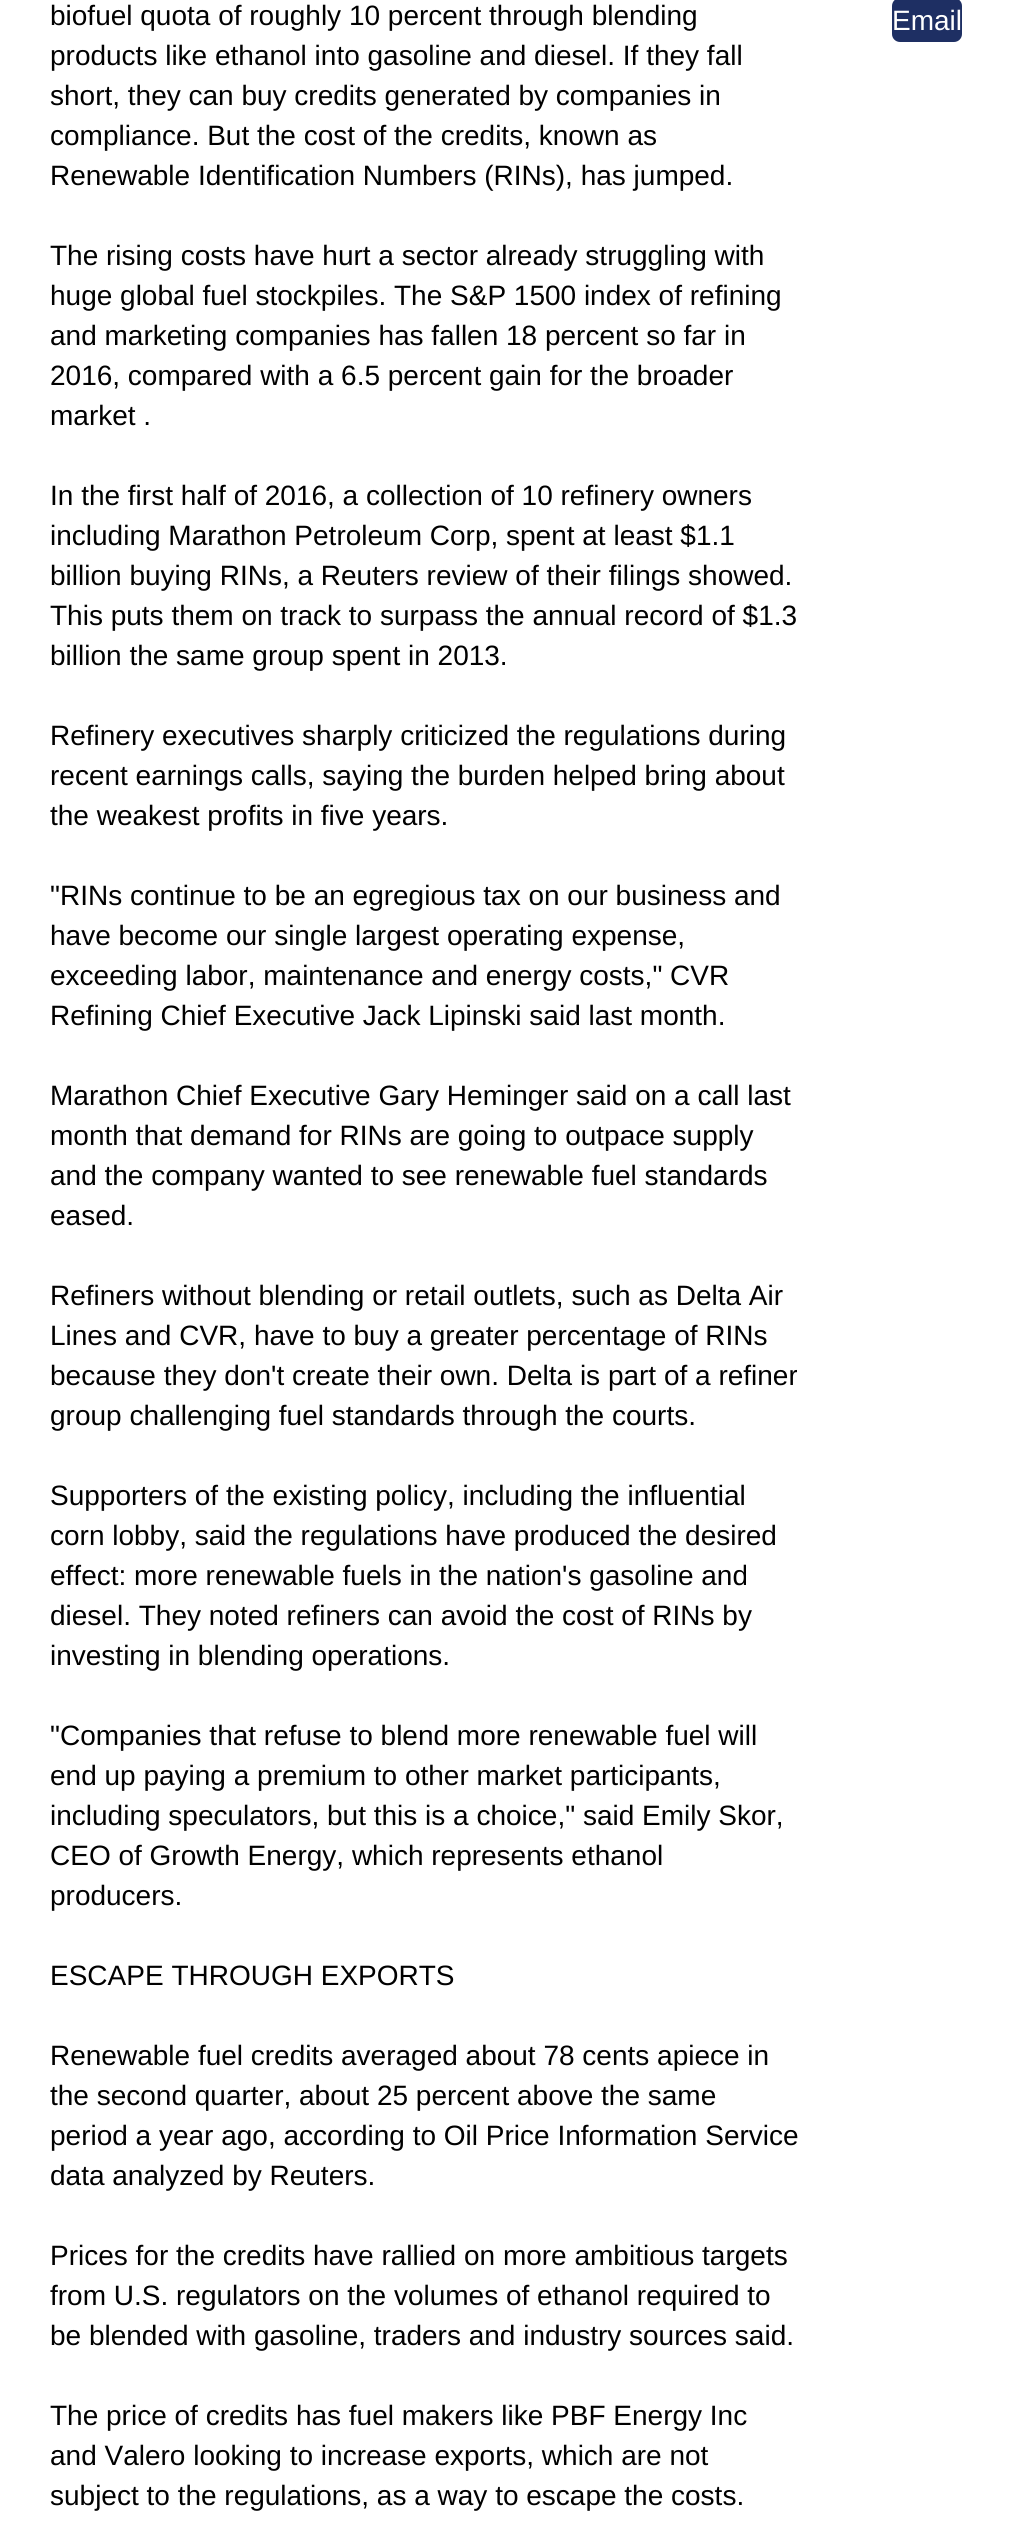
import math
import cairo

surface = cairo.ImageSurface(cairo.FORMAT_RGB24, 1012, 2537)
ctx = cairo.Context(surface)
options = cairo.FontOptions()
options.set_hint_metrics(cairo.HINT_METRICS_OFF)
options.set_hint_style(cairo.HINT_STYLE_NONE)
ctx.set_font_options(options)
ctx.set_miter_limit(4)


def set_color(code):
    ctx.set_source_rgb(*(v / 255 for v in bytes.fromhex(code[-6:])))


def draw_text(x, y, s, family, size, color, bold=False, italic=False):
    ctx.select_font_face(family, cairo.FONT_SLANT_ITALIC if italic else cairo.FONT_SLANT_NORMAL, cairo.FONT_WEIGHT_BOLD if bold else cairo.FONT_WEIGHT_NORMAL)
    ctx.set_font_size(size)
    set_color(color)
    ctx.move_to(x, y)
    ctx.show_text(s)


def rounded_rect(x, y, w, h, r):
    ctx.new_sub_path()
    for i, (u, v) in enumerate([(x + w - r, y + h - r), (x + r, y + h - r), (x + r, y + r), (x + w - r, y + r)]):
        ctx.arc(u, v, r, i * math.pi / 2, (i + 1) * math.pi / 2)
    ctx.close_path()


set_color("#ffffff")
ctx.paint()
draw_text(50, 25, "biofuel quota of roughly 10 percent through blending", "Liberation Sans", 28, "#000000")
draw_text(50, 65, "products like ethanol into gasoline and diesel. If they fall", "Liberation Sans", 28, "#000000")
draw_text(50, 105, "short, they can buy credits generated by companies in", "Liberation Sans", 28, "#000000")
draw_text(50, 145, "compliance. But the cost of the credits, known as", "Liberation Sans", 28, "#000000")
draw_text(50, 185, "Renewable Identification Numbers (RINs), has jumped.", "Liberation Sans", 28, "#000000")
draw_text(50, 265, "The rising costs have hurt a sector already struggling with", "Liberation Sans", 28, "#000000")
draw_text(50, 305, "huge global fuel stockpiles. The S&P 1500 index of refining", "Liberation Sans", 28, "#000000")
draw_text(50, 345, "and marketing companies has fallen 18 percent so far in", "Liberation Sans", 28, "#000000")
draw_text(50, 385, "2016, compared with a 6.5 percent gain for the broader", "Liberation Sans", 28, "#000000")
draw_text(50, 425, "market .", "Liberation Sans", 28, "#000000")
draw_text(50, 505, "In the first half of 2016, a collection of 10 refinery owners", "Liberation Sans", 28, "#000000")
draw_text(50, 545, "including Marathon Petroleum Corp, spent at least $1.1", "Liberation Sans", 28, "#000000")
draw_text(50, 585, "billion buying RINs, a Reuters review of their filings showed.", "Liberation Sans", 28, "#000000")
draw_text(50, 625, "This puts them on track to surpass the annual record of $1.3", "Liberation Sans", 28, "#000000")
draw_text(50, 665, "billion the same group spent in 2013.", "Liberation Sans", 28, "#000000")
draw_text(50, 745, "Refinery executives sharply criticized the regulations during", "Liberation Sans", 28, "#000000")
draw_text(50, 785, "recent earnings calls, saying the burden helped bring about", "Liberation Sans", 28, "#000000")
draw_text(50, 825, "the weakest profits in five years.", "Liberation Sans", 28, "#000000")
draw_text(50, 905, "\"RINs continue to be an egregious tax on our business and", "Liberation Sans", 28, "#000000")
draw_text(50, 945, "have become our single largest operating expense,", "Liberation Sans", 28, "#000000")
draw_text(50, 985, "exceeding labor, maintenance and energy costs,\" CVR", "Liberation Sans", 28, "#000000")
draw_text(50, 1025, "Refining Chief Executive Jack Lipinski said last month.", "Liberation Sans", 28, "#000000")
draw_text(50, 1105, "Marathon Chief Executive Gary Heminger said on a call last", "Liberation Sans", 28, "#000000")
draw_text(50, 1145, "month that demand for RINs are going to outpace supply", "Liberation Sans", 28, "#000000")
draw_text(50, 1185, "and the company wanted to see renewable fuel standards", "Liberation Sans", 28, "#000000")
draw_text(50, 1225, "eased.", "Liberation Sans", 28, "#000000")
draw_text(50, 1305, "Refiners without blending or retail outlets, such as Delta Air", "Liberation Sans", 28, "#000000")
draw_text(50, 1345, "Lines and CVR, have to buy a greater percentage of RINs", "Liberation Sans", 28, "#000000")
draw_text(50, 1385, "because they don't create their own. Delta is part of a refiner", "Liberation Sans", 28, "#000000")
draw_text(50, 1425, "group challenging fuel standards through the courts.", "Liberation Sans", 28, "#000000")
draw_text(50, 1505, "Supporters of the existing policy, including the influential", "Liberation Sans", 28, "#000000")
draw_text(50, 1545, "corn lobby, said the regulations have produced the desired", "Liberation Sans", 28, "#000000")
draw_text(50, 1585, "effect: more renewable fuels in the nation's gasoline and", "Liberation Sans", 28, "#000000")
draw_text(50, 1625, "diesel. They noted refiners can avoid the cost of RINs by", "Liberation Sans", 28, "#000000")
draw_text(50, 1665, "investing in blending operations.", "Liberation Sans", 28, "#000000")
draw_text(50, 1745, "\"Companies that refuse to blend more renewable fuel will", "Liberation Sans", 28, "#000000")
draw_text(50, 1785, "end up paying a premium to other market participants,", "Liberation Sans", 28, "#000000")
draw_text(50, 1825, "including speculators, but this is a choice,\" said Emily Skor,", "Liberation Sans", 28, "#000000")
draw_text(50, 1865, "CEO of Growth Energy, which represents ethanol", "Liberation Sans", 28, "#000000")
draw_text(50, 1905, "producers.", "Liberation Sans", 28, "#000000")
draw_text(50, 1985, "ESCAPE THROUGH EXPORTS", "Liberation Sans", 28, "#000000")
draw_text(50, 2065, "Renewable fuel credits averaged about 78 cents apiece in", "Liberation Sans", 28, "#000000")
draw_text(50, 2105, "the second quarter, about 25 percent above the same", "Liberation Sans", 28, "#000000")
draw_text(50, 2145, "period a year ago, according to Oil Price Information Service", "Liberation Sans", 28, "#000000")
draw_text(50, 2185, "data analyzed by Reuters.", "Liberation Sans", 28, "#000000")
draw_text(50, 2265, "Prices for the credits have rallied on more ambitious targets", "Liberation Sans", 28, "#000000")
draw_text(50, 2305, "from U.S. regulators on the volumes of ethanol required to", "Liberation Sans", 28, "#000000")
draw_text(50, 2345, "be blended with gasoline, traders and industry sources said.", "Liberation Sans", 28, "#000000")
draw_text(50, 2425, "The price of credits has fuel makers like PBF Energy Inc", "Liberation Sans", 28, "#000000")
draw_text(50, 2465, "and Valero looking to increase exports, which are not", "Liberation Sans", 28, "#000000")
draw_text(50, 2505, "subject to the regulations, as a way to escape the costs.", "Liberation Sans", 28, "#000000")
set_color("#1e2f63")
rounded_rect(892, -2, 70, 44, 8)
ctx.fill()
draw_text(892, 30, "Email", "Liberation Sans", 28, "#ffffff")
surface.write_to_png("output.png")
